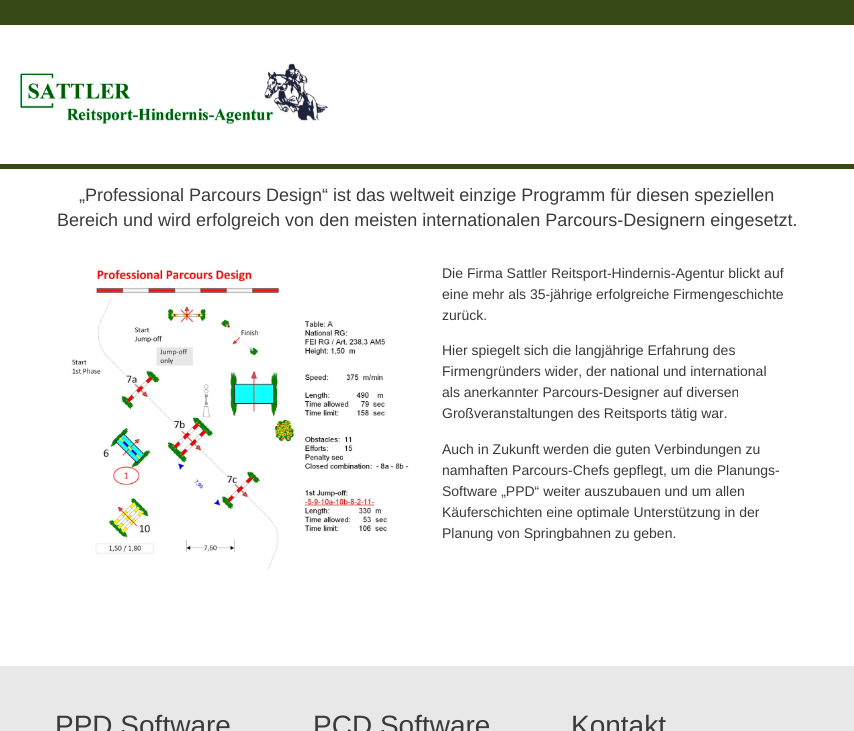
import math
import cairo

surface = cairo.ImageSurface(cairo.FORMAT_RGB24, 854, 731)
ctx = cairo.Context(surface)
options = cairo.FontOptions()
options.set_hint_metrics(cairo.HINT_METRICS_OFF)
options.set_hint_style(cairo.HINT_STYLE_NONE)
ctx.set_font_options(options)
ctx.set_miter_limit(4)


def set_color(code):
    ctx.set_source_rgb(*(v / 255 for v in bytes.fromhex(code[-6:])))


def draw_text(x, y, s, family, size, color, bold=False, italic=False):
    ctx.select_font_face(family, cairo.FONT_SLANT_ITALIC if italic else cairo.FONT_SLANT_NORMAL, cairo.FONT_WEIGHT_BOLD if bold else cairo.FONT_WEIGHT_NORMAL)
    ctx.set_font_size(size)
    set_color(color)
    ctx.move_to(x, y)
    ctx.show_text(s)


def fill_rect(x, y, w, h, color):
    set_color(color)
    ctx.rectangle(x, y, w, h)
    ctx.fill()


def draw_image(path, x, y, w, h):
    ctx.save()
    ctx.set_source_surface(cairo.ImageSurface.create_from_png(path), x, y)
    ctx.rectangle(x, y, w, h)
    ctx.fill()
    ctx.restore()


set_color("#ffffff")
ctx.paint()
fill_rect(0, 0, 854, 25, "#364a18")
fill_rect(0, 164, 854, 5, "#364a18")
draw_image("assets/img1.png", 19, 63, 310, 62)
draw_text(79, 201, "„Professional Parcours Design“ ist das weltweit einzige Programm für diesen speziellen", "Liberation Sans", 18, "#3a3a3a")
draw_text(57, 226, "Bereich und wird erfolgreich von den meisten internationalen Parcours-Designern eingesetzt.", "Liberation Sans", 18, "#3a3a3a")
draw_image("assets/img2.png", 71, 268, 338, 301)
draw_text(442, 278, "Die Firma Sattler Reitsport-Hindernis-Agentur blickt auf", "Liberation Sans", 14, "#3a3a3a")
draw_text(442, 299, "eine mehr als 35-jährige erfolgreiche Firmengeschichte", "Liberation Sans", 14, "#3a3a3a")
draw_text(442, 320, "zurück.", "Liberation Sans", 14, "#3a3a3a")
draw_text(442, 355, "Hier spiegelt sich die langjährige Erfahrung des", "Liberation Sans", 14, "#3a3a3a")
draw_text(442, 376, "Firmengründers wider, der national und international", "Liberation Sans", 14, "#3a3a3a")
draw_text(442, 397, "als anerkannter Parcours-Designer auf diversen", "Liberation Sans", 14, "#3a3a3a")
draw_text(442, 418, "Großveranstaltungen des Reitsports tätig war.", "Liberation Sans", 14, "#3a3a3a")
draw_text(442, 454, "Auch in Zukunft werden die guten Verbindungen zu", "Liberation Sans", 14, "#3a3a3a")
draw_text(442, 475, "namhaften Parcours-Chefs gepflegt, um die Planungs-", "Liberation Sans", 14, "#3a3a3a")
draw_text(442, 496, "Software „PPD“ weiter auszubauen und um allen", "Liberation Sans", 14, "#3a3a3a")
draw_text(442, 517, "Käuferschichten eine optimale Unterstützung in der", "Liberation Sans", 14, "#3a3a3a")
draw_text(442, 538, "Planung von Springbahnen zu geben.", "Liberation Sans", 14, "#3a3a3a")
fill_rect(0, 666, 854, 65, "#e8e8e8")
draw_text(55, 735, "PPD Software", "Liberation Sans", 28, "#3a3a3a")
draw_text(313, 735, "PCD Software", "Liberation Sans", 28, "#3a3a3a")
draw_text(571, 735, "Kontakt", "Liberation Sans", 28, "#3a3a3a")
surface.write_to_png("output.png")
